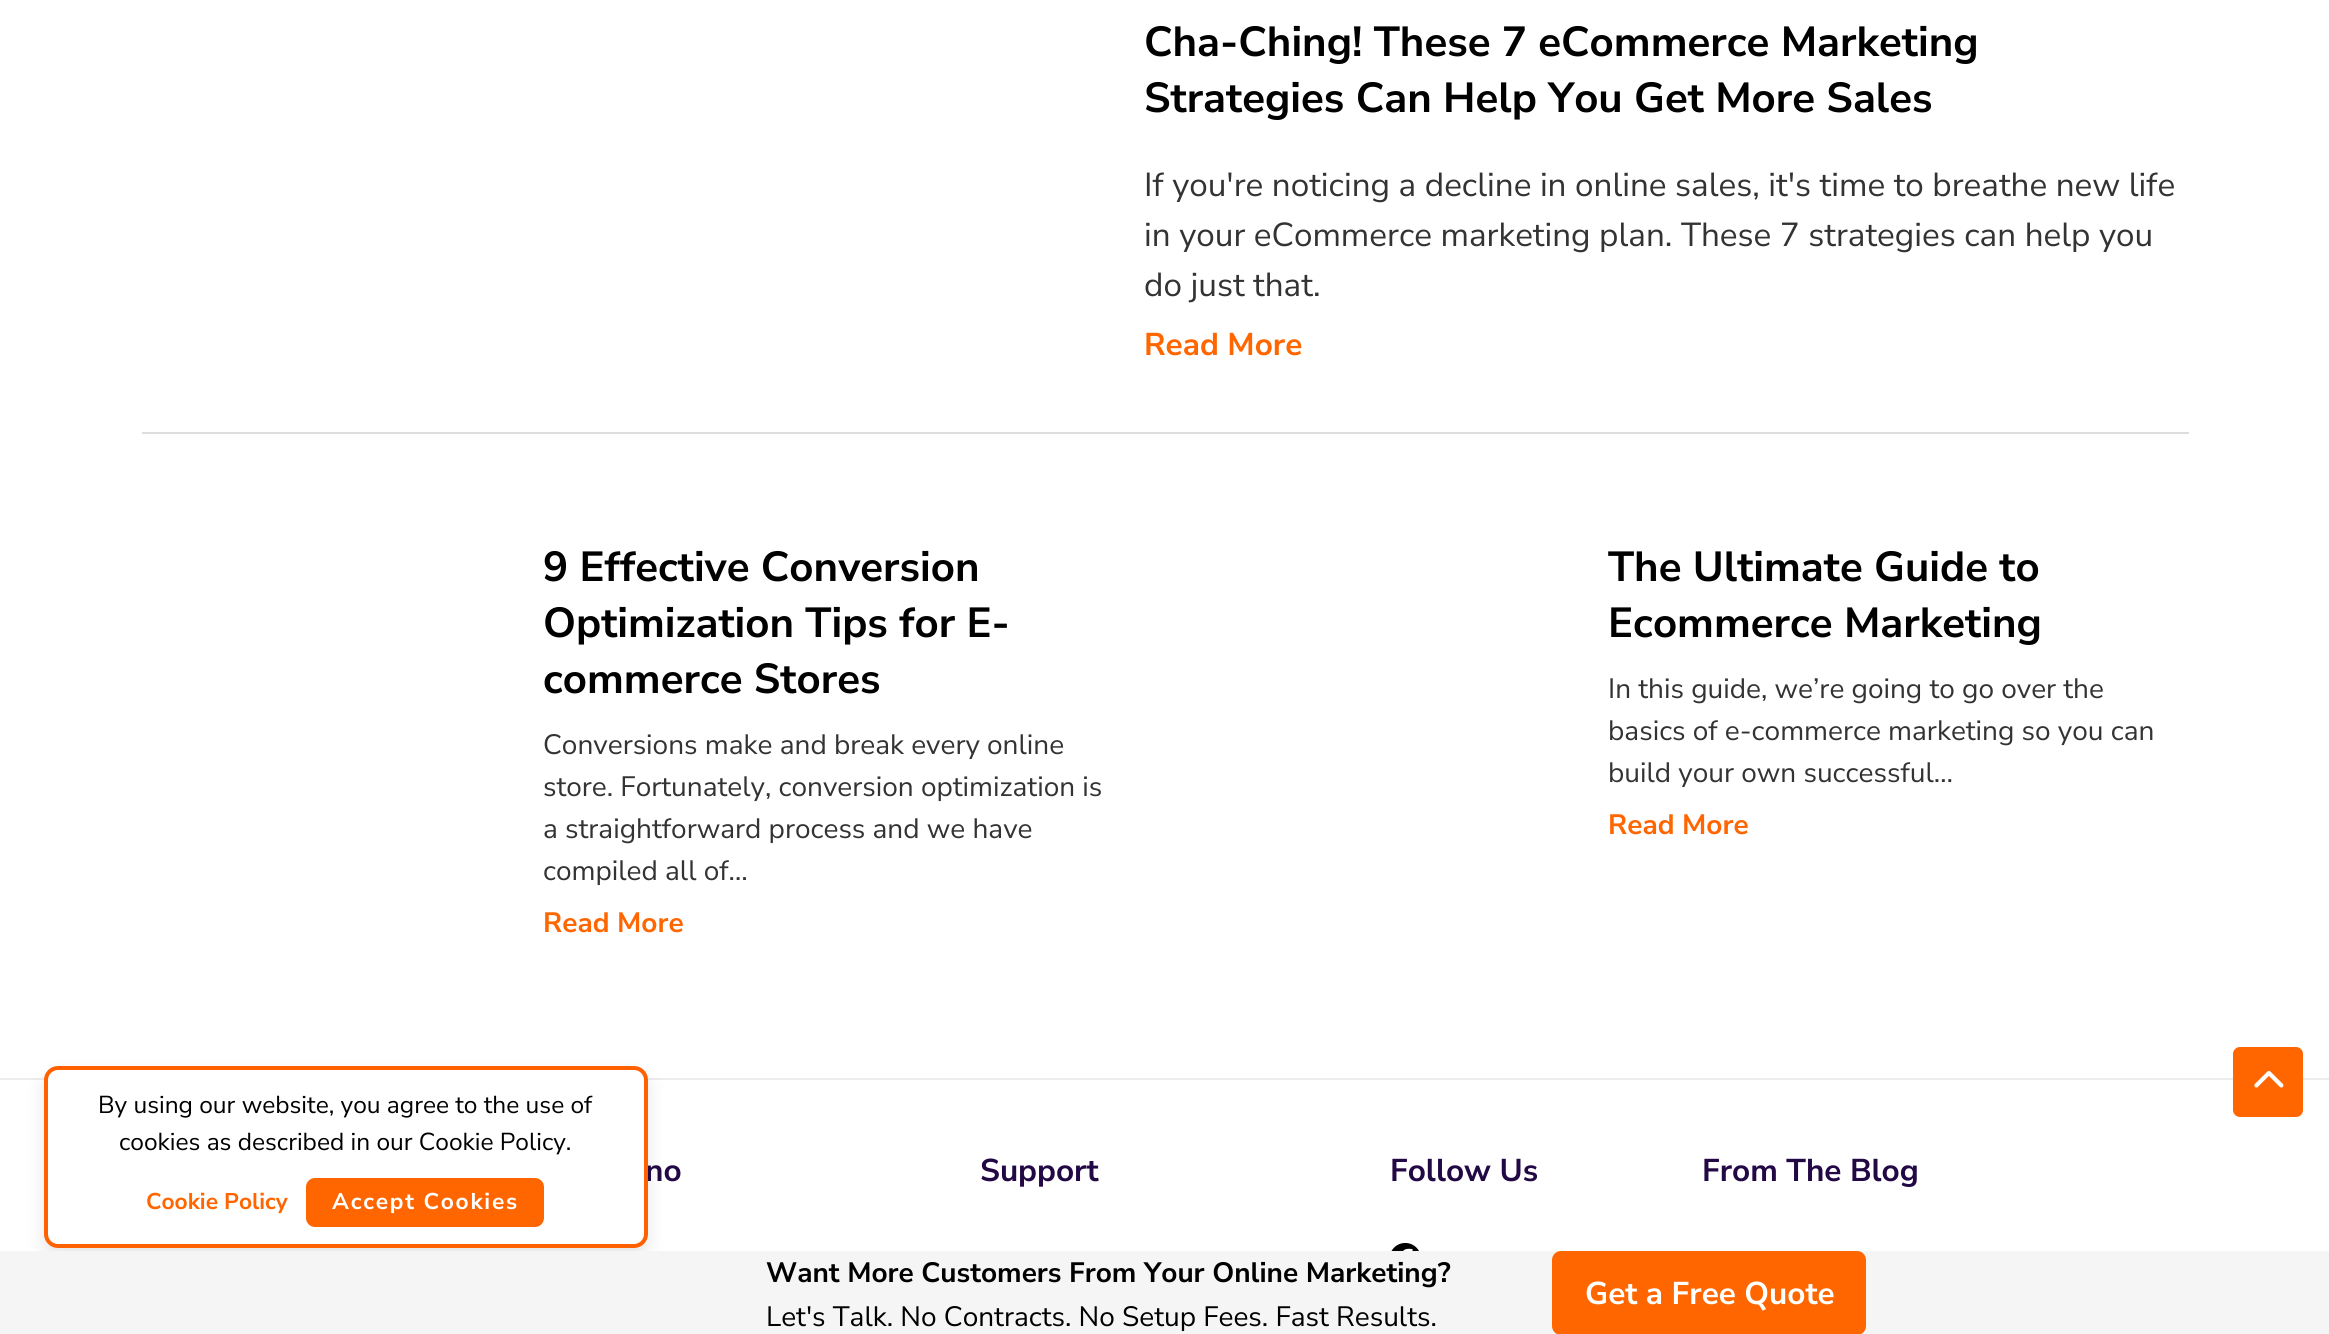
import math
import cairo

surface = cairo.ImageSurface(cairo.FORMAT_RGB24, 2329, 1334)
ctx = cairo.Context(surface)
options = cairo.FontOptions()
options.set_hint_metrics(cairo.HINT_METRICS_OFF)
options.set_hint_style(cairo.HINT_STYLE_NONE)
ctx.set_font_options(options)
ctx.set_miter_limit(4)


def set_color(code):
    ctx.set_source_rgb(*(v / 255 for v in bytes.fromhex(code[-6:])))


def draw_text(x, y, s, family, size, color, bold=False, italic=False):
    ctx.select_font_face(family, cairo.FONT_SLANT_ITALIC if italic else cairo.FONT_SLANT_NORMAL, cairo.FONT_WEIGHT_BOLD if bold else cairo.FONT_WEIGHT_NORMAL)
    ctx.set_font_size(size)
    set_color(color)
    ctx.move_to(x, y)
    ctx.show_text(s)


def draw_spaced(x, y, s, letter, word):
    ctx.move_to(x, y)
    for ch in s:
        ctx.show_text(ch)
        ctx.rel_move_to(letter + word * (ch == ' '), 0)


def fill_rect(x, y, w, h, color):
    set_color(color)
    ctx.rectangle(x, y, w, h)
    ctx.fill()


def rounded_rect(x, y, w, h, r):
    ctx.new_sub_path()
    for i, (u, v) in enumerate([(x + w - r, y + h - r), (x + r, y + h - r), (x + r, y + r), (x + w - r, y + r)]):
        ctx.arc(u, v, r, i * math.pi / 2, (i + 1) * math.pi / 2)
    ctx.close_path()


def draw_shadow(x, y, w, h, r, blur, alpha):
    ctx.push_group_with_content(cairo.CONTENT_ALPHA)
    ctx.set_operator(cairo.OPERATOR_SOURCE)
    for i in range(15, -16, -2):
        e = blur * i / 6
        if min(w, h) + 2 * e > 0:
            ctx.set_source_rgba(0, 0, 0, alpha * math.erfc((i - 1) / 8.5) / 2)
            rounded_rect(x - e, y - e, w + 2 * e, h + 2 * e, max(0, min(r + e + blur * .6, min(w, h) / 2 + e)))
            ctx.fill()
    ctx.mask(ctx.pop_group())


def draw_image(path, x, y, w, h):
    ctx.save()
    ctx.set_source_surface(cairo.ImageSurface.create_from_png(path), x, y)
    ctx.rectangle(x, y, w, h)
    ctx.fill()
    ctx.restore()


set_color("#ffffff")
ctx.paint()
fill_rect(142, 432, 2047, 2, "#dddddd")
draw_text(1144, 56, "Cha-Ching! These 7 eCommerce Marketing", "Nunito Sans", 42, "#000000", bold=True)
draw_text(1144, 112, "Strategies Can Help You Get More Sales", "Nunito Sans", 42, "#000000", bold=True)
draw_text(1144, 196, "If you're noticing a decline in online sales, it's time to breathe new life", "Nunito Sans", 33.25, "#333333")
draw_text(1144, 246, "in your eCommerce marketing plan. These 7 strategies can help you", "Nunito Sans", 33.25, "#333333")
draw_text(1144, 296, "do just that.", "Nunito Sans", 33.25, "#333333")
draw_text(1144, 355, "Read More", "Nunito Sans", 31.5, "#ff6600", bold=True)
draw_text(543, 581, "9 Effective Conversion", "Nunito Sans", 42, "#000000", bold=True)
draw_text(543, 637, "Optimization Tips for E-", "Nunito Sans", 42, "#000000", bold=True)
draw_text(543, 693, "commerce Stores", "Nunito Sans", 42, "#000000", bold=True)
draw_text(543, 754, "Conversions make and break every online", "Nunito Sans", 28, "#333333")
draw_text(543, 796, "store. Fortunately, conversion optimization is", "Nunito Sans", 28, "#333333")
draw_text(543, 838, "a straightforward process and we have", "Nunito Sans", 28, "#333333")
draw_text(543, 880, "compiled all of…", "Nunito Sans", 28, "#333333")
draw_text(543, 932, "Read More", "Nunito Sans", 28, "#ff6600", bold=True)
draw_text(1608, 581, "The Ultimate Guide to", "Nunito Sans", 42, "#000000", bold=True)
draw_text(1608, 637, "Ecommerce Marketing", "Nunito Sans", 42, "#000000", bold=True)
draw_text(1608, 698, "In this guide, we’re going to go over the", "Nunito Sans", 28, "#333333")
draw_text(1608, 740, "basics of e-commerce marketing so you can", "Nunito Sans", 28, "#333333")
draw_text(1608, 782, "build your own successful…", "Nunito Sans", 28, "#333333")
draw_text(1608, 834, "Read More", "Nunito Sans", 28, "#ff6600", bold=True)
fill_rect(0, 1078, 2329, 2, "#ededed")
set_color("#000000")
draw_shadow(44, 1075, 604, 182, 14, 9, 0.1)
draw_text(645, 1181, "no", "Nunito Sans", 31.5, "#220844", bold=True)
set_color("#ffffff")
rounded_rect(46, 1068, 600, 178, 12)
ctx.fill_preserve()
set_color("#ff6000")
ctx.set_line_width(4)
ctx.stroke()
draw_text(98, 1113, "By using our website, you agree to the use of", "Nunito Sans", 24.5, "#000000")
draw_text(119, 1150, "cookies as described in our Cookie Policy.", "Nunito Sans", 24.5, "#000000")
draw_text(146, 1209, "Cookie Policy", "Nunito Sans", 22.75, "#ff6600", bold=True)
rounded_rect(306, 1178, 238, 49, 9)
ctx.fill()
set_color("#ffffff")
draw_spaced(332, 1209, "Accept Cookies", 1.75, 0)
draw_text(980, 1181, "Support", "Nunito Sans", 31.5, "#220844", bold=True)
draw_text(1390, 1181, "Follow Us", "Nunito Sans", 31.5, "#220844", bold=True)
draw_image("assets/img1.png", 1391, 1242, 28, 9)
draw_text(1702, 1181, "From The Blog", "Nunito Sans", 31.5, "#220844", bold=True)
fill_rect(0, 1251, 2329, 83, "#f5f5f5")
draw_text(766, 1282, "Want More Customers From Your Online Marketing?", "Nunito Sans", 28, "#000000", bold=True)
draw_text(766, 1326, "Let's Talk. No Contracts. No Setup Fees. Fast Results.", "Nunito Sans", 28, "#000000")
set_color("#ff6600")
rounded_rect(1552, 1251, 314, 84, 9)
ctx.fill()
draw_text(1585, 1304, "Get a Free Quote", "Nunito Sans", 31.5, "#ffffff", bold=True)
set_color("#ff6600")
rounded_rect(2233, 1047, 70, 70, 7)
ctx.fill()
draw_image("assets/img2.png", 2254, 1070, 30, 18)
surface.write_to_png("output.png")
